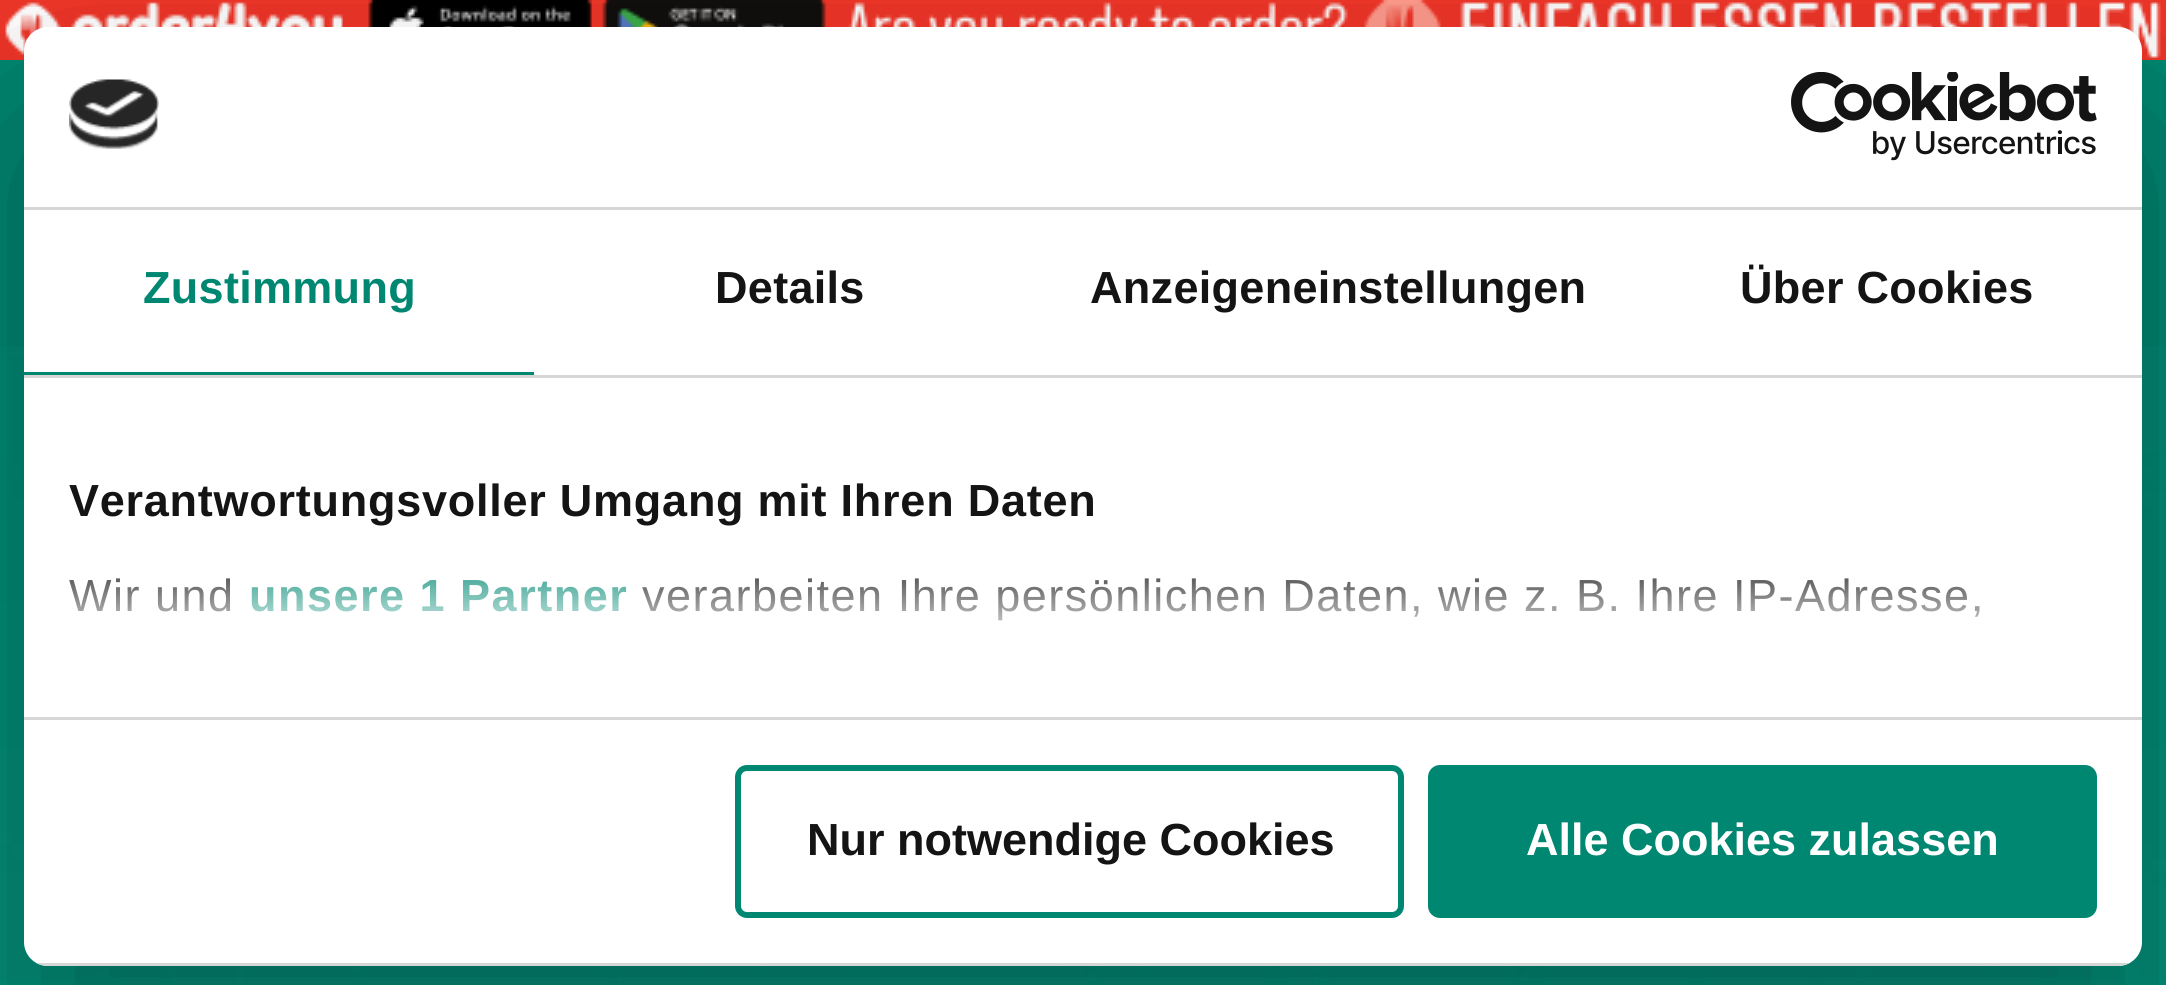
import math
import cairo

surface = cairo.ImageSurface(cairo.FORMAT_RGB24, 2166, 985)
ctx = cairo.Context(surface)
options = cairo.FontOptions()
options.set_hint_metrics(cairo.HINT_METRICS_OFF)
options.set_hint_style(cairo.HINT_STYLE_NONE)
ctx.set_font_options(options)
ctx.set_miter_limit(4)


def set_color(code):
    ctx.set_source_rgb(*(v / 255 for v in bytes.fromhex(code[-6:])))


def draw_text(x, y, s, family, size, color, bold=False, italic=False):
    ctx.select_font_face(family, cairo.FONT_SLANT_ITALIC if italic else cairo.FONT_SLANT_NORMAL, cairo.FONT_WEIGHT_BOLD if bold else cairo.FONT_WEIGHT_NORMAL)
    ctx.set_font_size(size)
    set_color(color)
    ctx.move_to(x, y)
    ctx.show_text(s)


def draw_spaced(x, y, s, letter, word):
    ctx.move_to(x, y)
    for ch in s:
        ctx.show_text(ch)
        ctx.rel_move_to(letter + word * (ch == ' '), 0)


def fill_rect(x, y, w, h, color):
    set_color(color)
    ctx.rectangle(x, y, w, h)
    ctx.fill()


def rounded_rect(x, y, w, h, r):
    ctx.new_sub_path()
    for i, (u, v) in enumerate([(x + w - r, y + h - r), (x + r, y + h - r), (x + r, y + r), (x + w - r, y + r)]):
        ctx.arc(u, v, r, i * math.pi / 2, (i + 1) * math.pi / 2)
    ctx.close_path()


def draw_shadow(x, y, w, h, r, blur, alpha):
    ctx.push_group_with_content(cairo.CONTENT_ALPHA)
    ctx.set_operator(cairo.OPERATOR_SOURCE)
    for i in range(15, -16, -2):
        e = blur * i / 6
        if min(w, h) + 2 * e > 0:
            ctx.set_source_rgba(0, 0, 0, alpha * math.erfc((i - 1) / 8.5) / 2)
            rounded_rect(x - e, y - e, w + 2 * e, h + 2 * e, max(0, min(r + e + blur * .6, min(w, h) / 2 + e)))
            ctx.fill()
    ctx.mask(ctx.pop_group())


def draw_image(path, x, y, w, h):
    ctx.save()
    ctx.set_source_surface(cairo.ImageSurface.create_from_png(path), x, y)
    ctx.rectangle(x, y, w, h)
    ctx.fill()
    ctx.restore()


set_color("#008771")
ctx.paint()
draw_image("assets/img1.png", 0, 0, 2166, 60)
draw_image("assets/img2.png", 0, 346, 2166, 639)
set_color("#000000")
draw_shadow(24, 123, 2118, 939, 24, 102, 0.3)
set_color("#ffffff")
rounded_rect(24, 27, 2118, 939, 24)
ctx.fill()
fill_rect(24, 207, 2118, 3, "#d6d6d6")
draw_image("assets/img3.png", 69, 79, 90, 70)
draw_image("assets/img4.png", 1791, 72, 306, 89)
fill_rect(24, 375, 2118, 3, "#d6d6d6")
fill_rect(24, 372, 510, 3, "#008771")
ctx.select_font_face("Liberation Sans", cairo.FONT_SLANT_NORMAL, cairo.FONT_WEIGHT_BOLD)
ctx.set_font_size(45)
draw_spaced(143, 303, "Zustimmung", 0.3, 0)
set_color("#141414")
draw_spaced(715, 303, "Details", 0.3, 0)
draw_spaced(1090, 303, "Anzeigeneinstellungen", 0.3, 0)
draw_spaced(1740, 303, "Über Cookies", 0.3, 0)
fill_rect(24, 717, 2118, 3, "#d6d6d6")
set_color("#141414")
draw_spaced(69, 516, "Verantwortungsvoller Umgang mit Ihren Daten", 0.75, 0)
ctx.select_font_face("Liberation Sans")
draw_spaced(69, 611, "Wir und", 1.5, 0)
ctx.select_font_face("Liberation Sans", cairo.FONT_SLANT_NORMAL, cairo.FONT_WEIGHT_BOLD)
set_color("#008771")
draw_spaced(249, 611, "unsere 1 Partner", 1.5, 0)
ctx.select_font_face("Liberation Sans")
set_color("#141414")
draw_spaced(642, 611, "verarbeiten Ihre persönlichen Daten, wie z. B. Ihre IP-Adresse,", 1.5, 0)
gradient = cairo.LinearGradient(1064, 716, 1064, 545)
gradient.add_color_stop_rgba(0, 1, 1, 1, 1)
gradient.add_color_stop_rgba(0.5, 1, 1, 1, 0.8)
gradient.add_color_stop_rgba(1, 1, 1, 1, 0)
ctx.set_source(gradient)
ctx.rectangle(69, 578, 1910, 43)
ctx.fill()
ctx.save()
rounded_rect(24, 27, 2118, 939, 24)
ctx.clip()
fill_rect(36, 963, 2094, 3, "#d6d6d6")
ctx.restore()
rounded_rect(738, 768, 663, 147, 9)
set_color("#008771")
ctx.set_line_width(6)
ctx.stroke()
draw_text(807, 855, "Nur notwendige Cookies", "Liberation Sans", 45, "#141414", bold=True)
set_color("#008771")
rounded_rect(1431, 768, 663, 147, 9)
ctx.fill_preserve()
ctx.stroke()
draw_text(1526, 855, "Alle Cookies zulassen", "Liberation Sans", 45, "#ffffff", bold=True)
surface.write_to_png("output.png")
